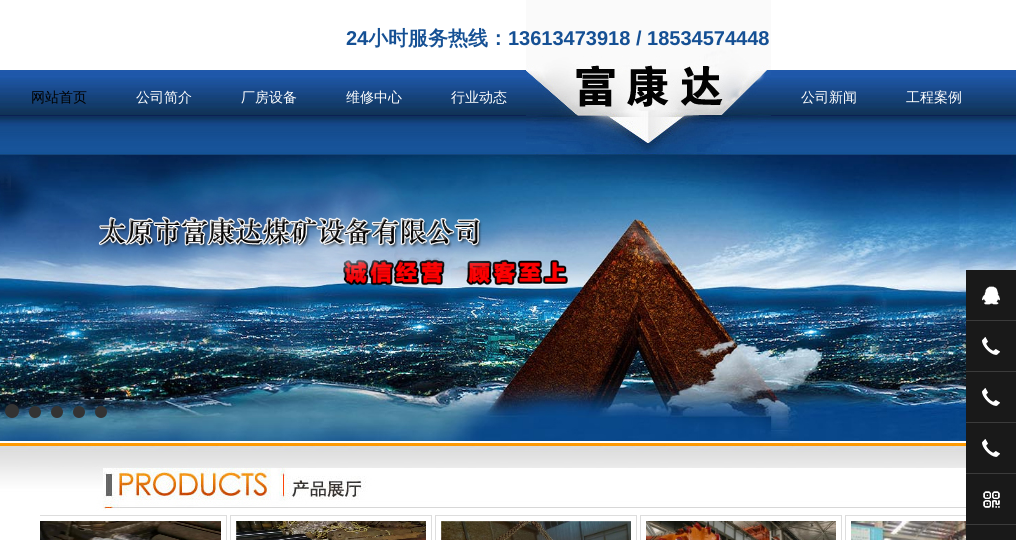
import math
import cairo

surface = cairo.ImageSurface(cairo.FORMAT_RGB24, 1016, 540)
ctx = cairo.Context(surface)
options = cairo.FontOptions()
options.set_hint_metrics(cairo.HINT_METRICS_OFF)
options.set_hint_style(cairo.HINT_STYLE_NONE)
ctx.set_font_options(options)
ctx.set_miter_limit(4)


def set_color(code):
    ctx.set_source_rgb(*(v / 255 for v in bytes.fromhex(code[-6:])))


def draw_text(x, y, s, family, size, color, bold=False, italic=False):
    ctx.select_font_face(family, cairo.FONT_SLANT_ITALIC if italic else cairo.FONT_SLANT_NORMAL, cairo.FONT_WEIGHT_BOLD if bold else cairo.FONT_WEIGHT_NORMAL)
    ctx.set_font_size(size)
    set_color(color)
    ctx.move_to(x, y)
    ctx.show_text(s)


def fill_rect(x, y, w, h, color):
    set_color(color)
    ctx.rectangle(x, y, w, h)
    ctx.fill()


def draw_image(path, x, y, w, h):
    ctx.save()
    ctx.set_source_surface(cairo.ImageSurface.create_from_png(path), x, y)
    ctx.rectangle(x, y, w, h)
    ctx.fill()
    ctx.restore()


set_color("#ffffff")
ctx.paint()
draw_text(346, 45, "24", "Liberation Sans", 20, "#155094", bold=True)
draw_text(368, 45, "小时服务热线：", "WenQuanYi Zen Hei", 20, "#155094", bold=True)
draw_image("assets/img1.png", 0, 70, 1016, 85)
draw_image("assets/img2.png", 526, 0, 245, 155)
draw_text(508, 45, "13613473918 / 18534574448", "Liberation Sans", 20, "#155094", bold=True)
draw_text(31, 102, "网站首页", "WenQuanYi Zen Hei Medium", 14, "#000000")
draw_text(136, 102, "公司简介", "WenQuanYi Zen Hei Medium", 14, "#ffffff")
draw_text(241, 102, "厂房设备", "WenQuanYi Zen Hei Medium", 14, "#ffffff")
draw_text(346, 102, "维修中心", "WenQuanYi Zen Hei Medium", 14, "#ffffff")
draw_text(451, 102, "行业动态", "WenQuanYi Zen Hei Medium", 14, "#ffffff")
draw_text(801, 102, "公司新闻", "WenQuanYi Zen Hei Medium", 14, "#ffffff")
draw_text(906, 102, "工程案例", "WenQuanYi Zen Hei Medium", 14, "#ffffff")
draw_image("assets/img3.png", 0, 155, 1016, 286)
set_color("#333333")
ctx.arc(12, 411, 7, 0, 2 * math.pi)
ctx.fill()
ctx.arc(35, 412, 6, 0, 2 * math.pi)
ctx.fill()
ctx.arc(57, 412, 6, 0, 2 * math.pi)
ctx.fill()
ctx.arc(79, 412, 6, 0, 2 * math.pi)
ctx.fill()
ctx.arc(101, 412, 6, 0, 2 * math.pi)
ctx.fill()
ctx.rectangle(845.5, 515.5, 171, 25)
set_color("#dddddd")
ctx.set_line_width(1)
ctx.stroke()
fill_rect(966, 525, 50, 15, "#191919")
fill_rect(966, 320, 50, 1, "#3b3b3b")
fill_rect(966, 270, 50, 50, "#191919")
draw_image("assets/img4.png", 982, 286, 18, 19)
fill_rect(966, 371, 50, 1, "#3b3b3b")
fill_rect(966, 321, 50, 50, "#191919")
draw_image("assets/img5.png", 982, 337, 18, 18)
fill_rect(966, 422, 50, 1, "#3b3b3b")
fill_rect(966, 372, 50, 50, "#191919")
draw_image("assets/img5.png", 982, 388, 18, 18)
fill_rect(966, 473, 50, 1, "#3b3b3b")
fill_rect(966, 423, 50, 50, "#191919")
draw_image("assets/img5.png", 982, 439, 18, 18)
fill_rect(966, 524, 50, 1, "#3b3b3b")
fill_rect(966, 474, 50, 50, "#191919")
draw_image("assets/img6.png", 983, 491, 17, 17)
draw_image("assets/img7.png", 0, 443, 966, 68)
ctx.save()
ctx.rectangle(40, 511, 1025, 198)
ctx.clip()
ctx.rectangle(25.5, 515.5, 201, 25)
set_color("#dddddd")
ctx.stroke()
ctx.restore()
draw_image("assets/img8.png", 40, 521, 181, 19)
ctx.rectangle(230.5, 515.5, 201, 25)
set_color("#dddddd")
ctx.stroke()
draw_image("assets/img9.png", 236, 521, 190, 19)
ctx.rectangle(435.5, 515.5, 201, 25)
ctx.stroke()
draw_image("assets/img10.png", 441, 521, 190, 19)
ctx.rectangle(640.5, 515.5, 201, 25)
ctx.stroke()
draw_image("assets/img11.png", 646, 521, 190, 19)
draw_image("assets/img12.png", 851, 521, 115, 19)
surface.write_to_png("output.png")
